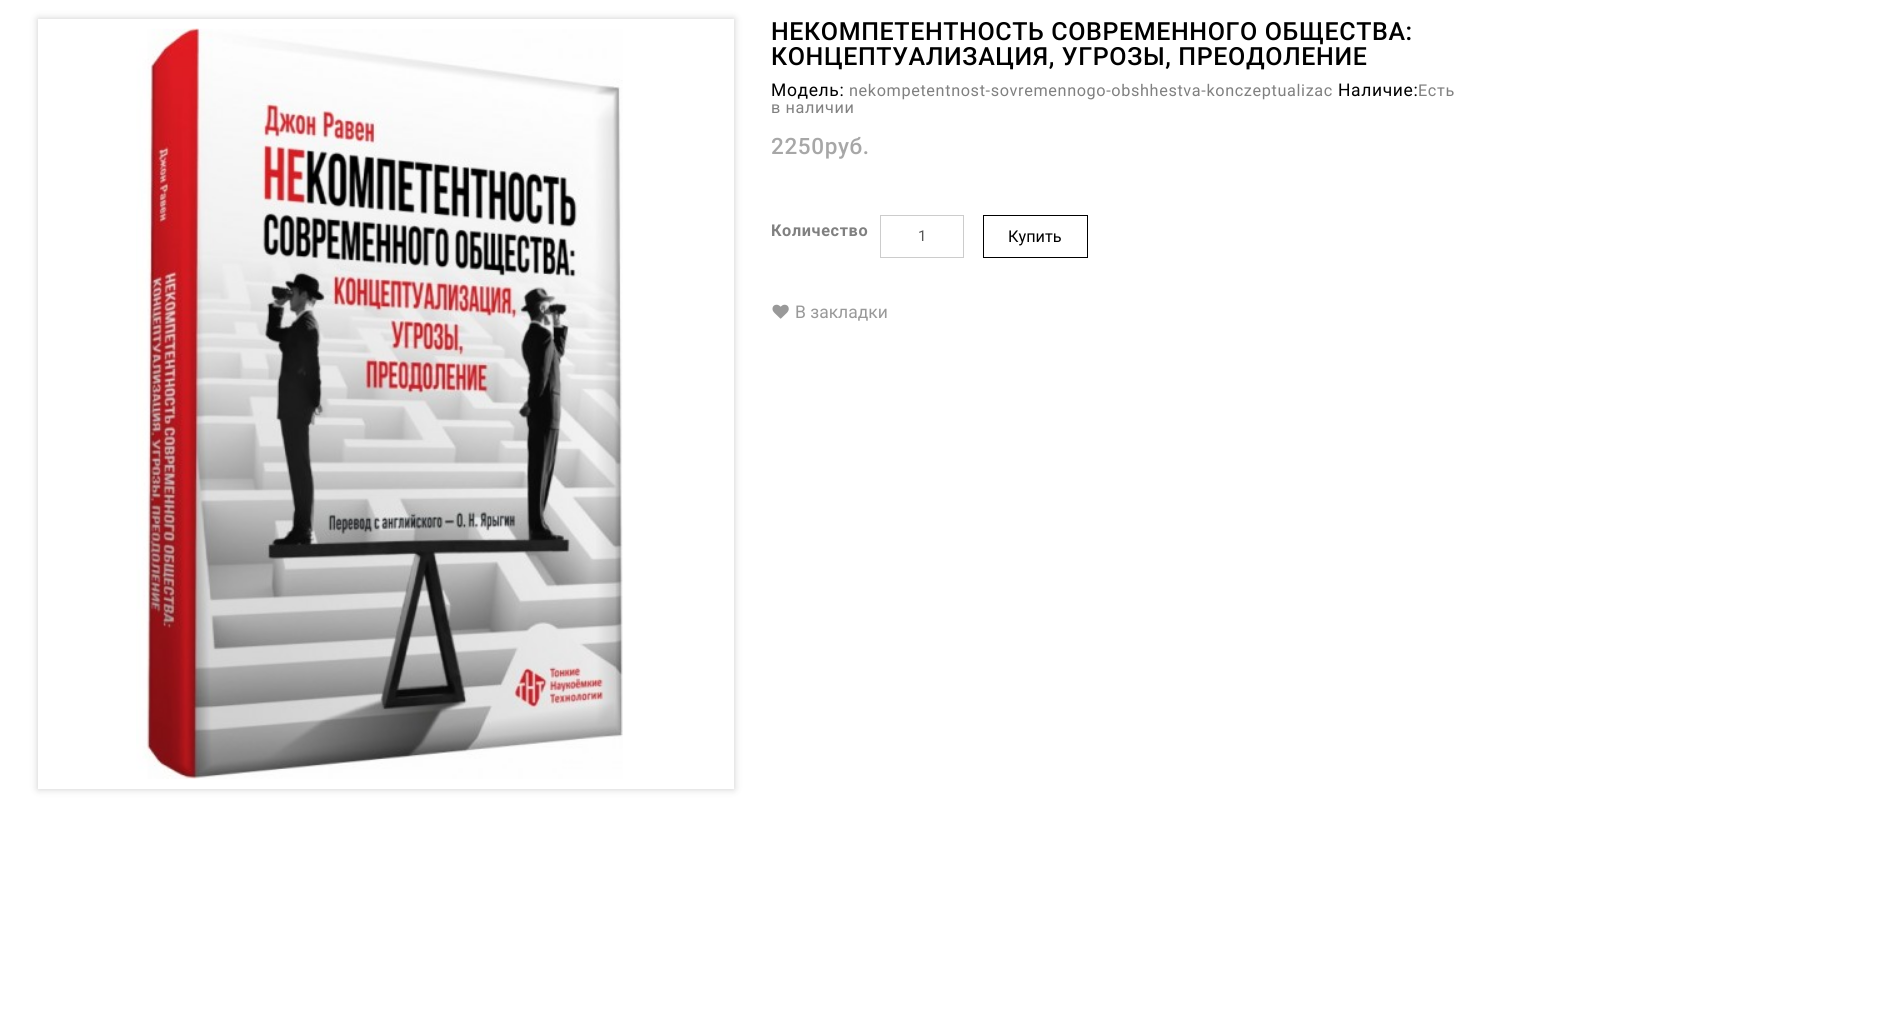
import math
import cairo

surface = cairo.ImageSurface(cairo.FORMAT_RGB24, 1896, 1010)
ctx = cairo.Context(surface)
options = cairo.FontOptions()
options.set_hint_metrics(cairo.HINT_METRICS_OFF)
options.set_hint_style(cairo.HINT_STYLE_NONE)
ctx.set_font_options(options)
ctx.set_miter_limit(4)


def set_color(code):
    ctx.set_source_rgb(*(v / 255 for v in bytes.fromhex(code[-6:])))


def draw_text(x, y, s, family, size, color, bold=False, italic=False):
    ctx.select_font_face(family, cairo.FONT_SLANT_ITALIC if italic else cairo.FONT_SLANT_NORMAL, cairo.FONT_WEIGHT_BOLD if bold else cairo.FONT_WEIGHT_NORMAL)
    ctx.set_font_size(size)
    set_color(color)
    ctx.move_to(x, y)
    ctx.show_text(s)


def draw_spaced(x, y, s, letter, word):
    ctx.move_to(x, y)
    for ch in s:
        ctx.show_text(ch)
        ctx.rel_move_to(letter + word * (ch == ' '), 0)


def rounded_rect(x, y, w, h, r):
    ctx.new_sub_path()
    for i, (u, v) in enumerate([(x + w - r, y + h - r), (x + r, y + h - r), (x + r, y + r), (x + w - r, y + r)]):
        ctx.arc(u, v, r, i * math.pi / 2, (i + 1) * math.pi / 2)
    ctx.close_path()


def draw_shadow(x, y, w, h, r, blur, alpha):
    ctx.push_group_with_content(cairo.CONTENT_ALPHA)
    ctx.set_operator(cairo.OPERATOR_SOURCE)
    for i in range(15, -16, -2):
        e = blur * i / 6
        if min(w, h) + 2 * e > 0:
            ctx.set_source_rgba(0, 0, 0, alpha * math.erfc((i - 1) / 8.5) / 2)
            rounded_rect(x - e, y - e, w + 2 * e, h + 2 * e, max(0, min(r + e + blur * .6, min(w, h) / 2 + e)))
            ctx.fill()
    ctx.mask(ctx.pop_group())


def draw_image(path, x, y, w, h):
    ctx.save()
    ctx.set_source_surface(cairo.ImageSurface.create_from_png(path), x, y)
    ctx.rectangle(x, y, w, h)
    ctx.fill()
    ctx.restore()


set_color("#ffffff")
ctx.paint()
ctx.save()
ctx.set_fill_rule(cairo.FILL_RULE_EVEN_ODD)
ctx.new_path()
ctx.move_to(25, 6)
ctx.line_to(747, 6)
ctx.line_to(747, 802)
ctx.line_to(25, 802)
ctx.close_path()
ctx.move_to(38, 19)
ctx.line_to(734, 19)
ctx.line_to(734, 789)
ctx.line_to(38, 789)
ctx.close_path()
ctx.clip()
set_color("#000000")
draw_shadow(38, 19, 696, 770, 0, 4, 0.2)
ctx.restore()
ctx.rectangle(43, 24, 686, 760)
set_color("#ffffff")
ctx.set_line_width(10)
ctx.stroke()
draw_image("assets/img1.png", 136, 28, 487, 751)
ctx.select_font_face("Roboto Medium")
ctx.set_font_size(25)
set_color("#000000")
draw_spaced(771, 40, "НЕКОМПЕТЕНТНОСТЬ СОВРЕМЕННОГО ОБЩЕСТВА:", 0.62, 0)
draw_spaced(771, 65, "КОНЦЕПТУАЛИЗАЦИЯ, УГРОЗЫ, ПРЕОДОЛЕНИЕ", 0.62, 0)
ctx.select_font_face("Roboto")
ctx.set_font_size(17.5)
draw_spaced(771, 96, "Модель:", 0.62, 0)
ctx.set_font_size(16.25)
set_color("#808080")
draw_spaced(849, 96, "nekompetentnost-sovremennogo-obshhestva-konczeptualizac", 0.62, 0)
ctx.set_font_size(17.5)
set_color("#000000")
draw_spaced(1338, 96, "Наличие:", 0.62, 0)
ctx.set_font_size(16.25)
set_color("#808080")
draw_spaced(1418, 96, "Есть", 0.62, 0)
draw_spaced(771, 113, "в наличии", 0.62, 0)
ctx.select_font_face("Roboto Medium")
ctx.set_font_size(22.5)
set_color("#a7a7a7")
draw_spaced(771, 154, "2250руб.", 0.62, 0)
ctx.select_font_face("Roboto", cairo.FONT_SLANT_NORMAL, cairo.FONT_WEIGHT_BOLD)
ctx.set_font_size(16.25)
set_color("#808080")
draw_spaced(771, 236, "Количество", 0.62, 0)
ctx.rectangle(880.5, 215.5, 83, 42)
set_color("#cccccc")
ctx.set_line_width(1)
ctx.stroke()
draw_text(918, 241, "1", "Roboto", 15, "#555555")
ctx.rectangle(983.5, 215.5, 104, 42)
set_color("#000000")
ctx.stroke()
draw_text(1008, 242, "Купить", "Roboto", 16.25, "#000000")
draw_image("assets/img2.png", 772, 304, 17, 15)
draw_text(795, 318, "В закладки", "Roboto", 17.5, "#999999")
surface.write_to_png("output.png")
